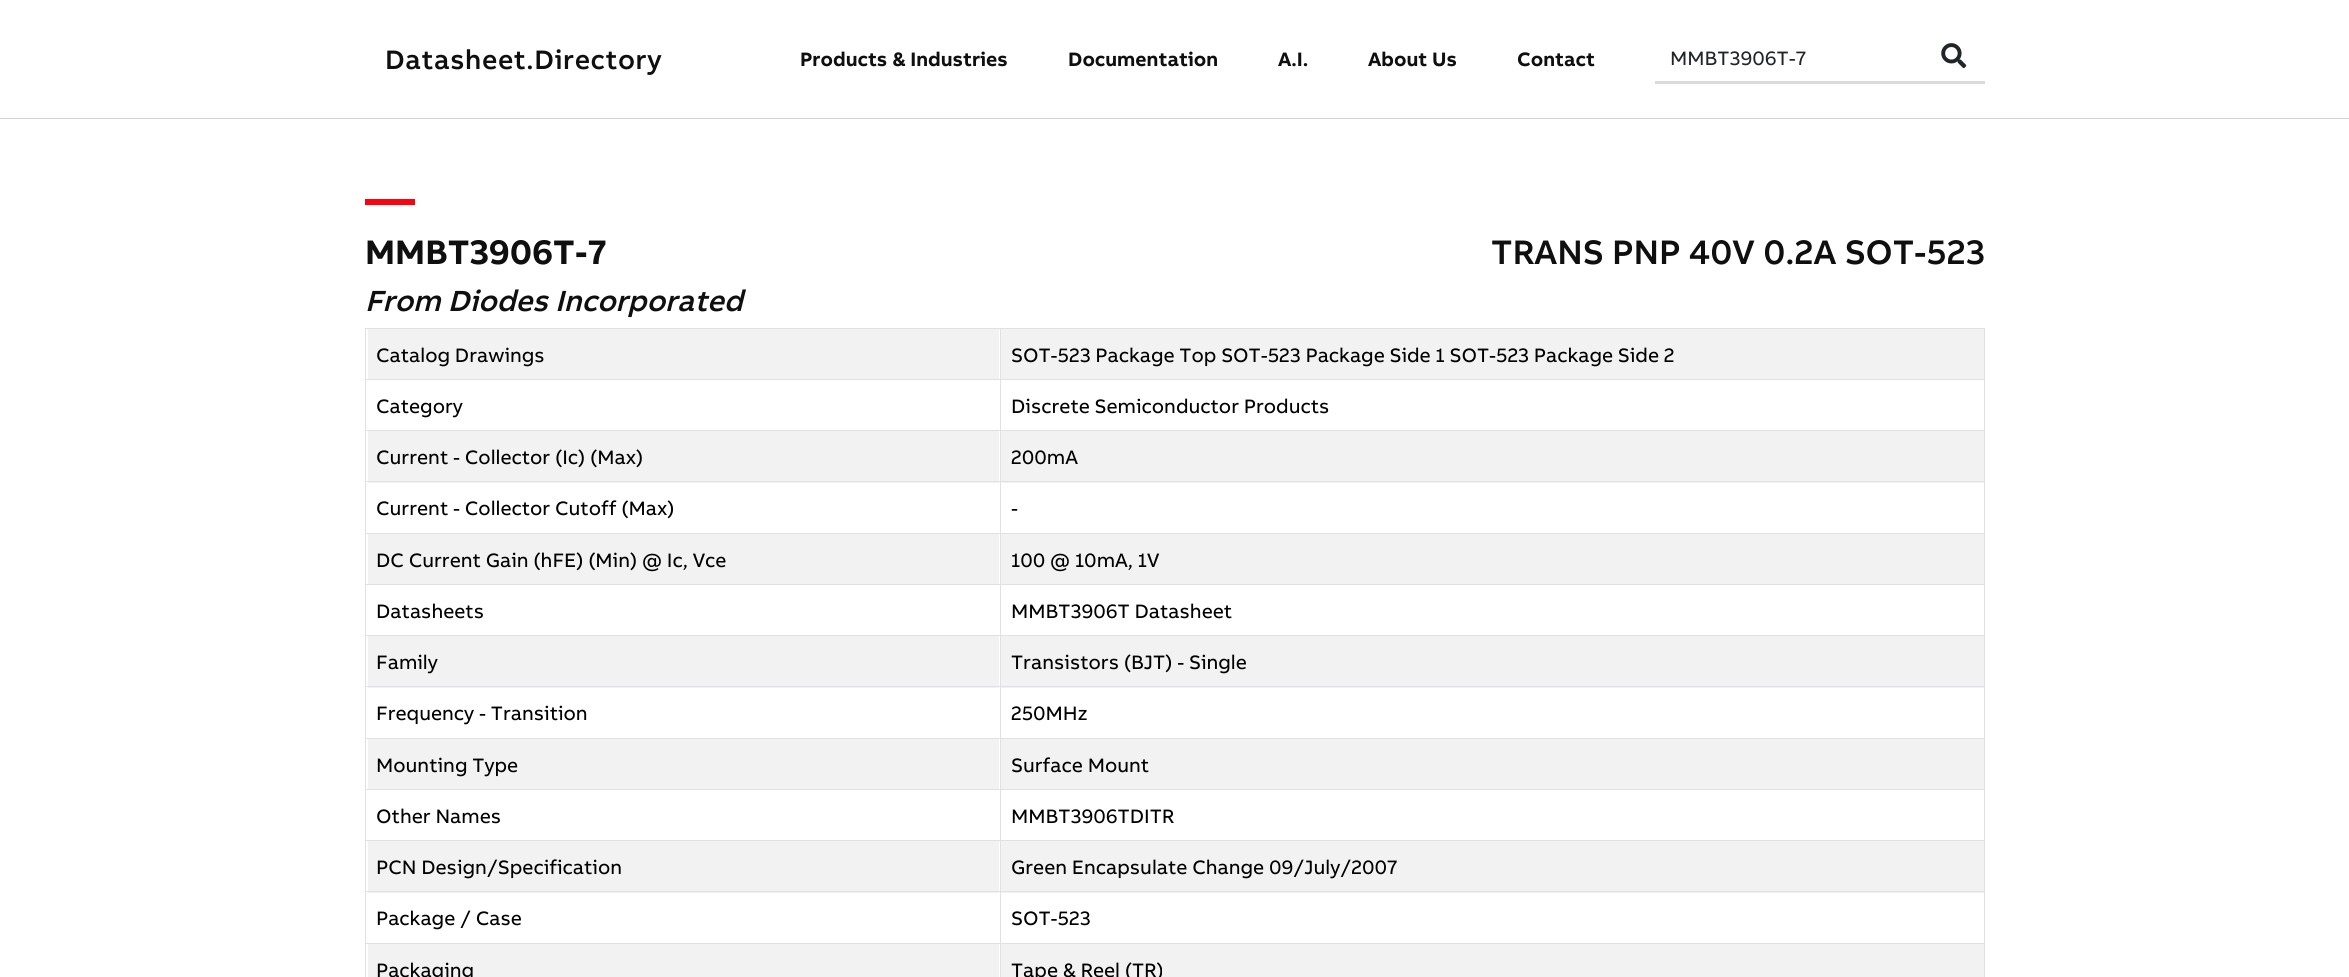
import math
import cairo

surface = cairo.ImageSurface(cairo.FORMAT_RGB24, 2349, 977)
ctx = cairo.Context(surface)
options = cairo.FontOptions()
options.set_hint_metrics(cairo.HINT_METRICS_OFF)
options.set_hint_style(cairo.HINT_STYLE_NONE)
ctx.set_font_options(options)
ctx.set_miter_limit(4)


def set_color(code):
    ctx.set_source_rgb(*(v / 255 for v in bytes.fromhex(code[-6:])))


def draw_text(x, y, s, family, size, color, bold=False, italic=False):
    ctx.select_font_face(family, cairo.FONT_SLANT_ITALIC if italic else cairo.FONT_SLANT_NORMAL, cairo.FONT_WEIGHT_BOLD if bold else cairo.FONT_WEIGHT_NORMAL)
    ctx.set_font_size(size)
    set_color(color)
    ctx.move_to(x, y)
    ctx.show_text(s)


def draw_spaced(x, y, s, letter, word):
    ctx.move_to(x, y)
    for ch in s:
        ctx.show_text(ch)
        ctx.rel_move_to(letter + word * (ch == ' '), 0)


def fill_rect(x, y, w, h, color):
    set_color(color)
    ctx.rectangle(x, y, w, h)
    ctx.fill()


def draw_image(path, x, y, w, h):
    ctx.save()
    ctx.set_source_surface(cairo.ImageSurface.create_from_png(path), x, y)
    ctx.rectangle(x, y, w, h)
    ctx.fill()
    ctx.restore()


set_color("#ffffff")
ctx.paint()
fill_rect(0, 118, 2349, 1, "#d2d2d2")
ctx.select_font_face("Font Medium")
ctx.set_font_size(27.5)
set_color("#0f0f0f")
draw_spaced(385, 69, "Datasheet.Directory", 0.6, 0)
draw_text(800, 66, "Products & Industries", "Font", 20, "#0f0f0f", bold=True)
draw_text(1068, 66, "Documentation", "Font", 20, "#0f0f0f", bold=True)
draw_text(1278, 66, "A.I.", "Font", 20, "#0f0f0f", bold=True)
draw_text(1368, 66, "About Us", "Font", 20, "#0f0f0f", bold=True)
draw_text(1517, 66, "Contact", "Font", 20, "#0f0f0f", bold=True)
fill_rect(1655, 81, 330, 3, "#dbdbdb")
draw_text(1670, 65, "MMBT3906T-7", "Font", 20, "#212529")
draw_image("assets/img1.png", 1941, 43, 26, 26)
fill_rect(365, 199, 50, 6, "#ff000f")
draw_text(365, 264, "MMBT3906T-7", "Font", 35, "#0f0f0f", bold=True)
draw_text(1491, 264, "TRANS PNP 40V 0.2A SOT-523", "Font Medium", 35, "#0f0f0f")
draw_text(365, 311, "From Diodes Incorporated", "Font Medium", 30, "#0f0f0f", italic=True)
fill_rect(365, 328, 1620, 1, "#dee2e6")
fill_rect(368, 329, 631, 50, "#f2f2f2")
draw_text(376, 362, "Catalog Drawings", "Font", 20, "#000000")
fill_rect(1001, 329, 983, 50, "#f2f2f2")
draw_text(1011, 362, "SOT-523 Package Top SOT-523 Package Side 1 SOT-523 Package Side 2", "Font", 20, "#000000")
fill_rect(365, 379, 1620, 1, "#dee2e6")
draw_text(376, 413, "Category", "Font", 20, "#000000")
draw_text(1011, 413, "Discrete Semiconductor Products", "Font", 20, "#000000")
fill_rect(365, 430, 1620, 1, "#dee2e6")
fill_rect(368, 431, 631, 52, "#f2f2f2")
draw_text(376, 464, "Current - Collector (Ic) (Max)", "Font", 20, "#000000")
fill_rect(1001, 431, 983, 52, "#f2f2f2")
draw_text(1011, 464, "200mA", "Font", 20, "#000000")
fill_rect(365, 481, 1620, 1, "#dee2e6")
draw_text(376, 515, "Current - Collector Cutoff (Max)", "Font", 20, "#000000")
draw_text(1011, 515, "-", "Font", 20, "#000000")
fill_rect(365, 533, 1620, 1, "#dee2e6")
fill_rect(368, 534, 631, 50, "#f2f2f2")
draw_text(376, 567, "DC Current Gain (hFE) (Min) @ Ic, Vce", "Font", 20, "#000000")
fill_rect(1001, 534, 983, 50, "#f2f2f2")
draw_text(1011, 567, "100 @ 10mA, 1V", "Font", 20, "#000000")
fill_rect(365, 584, 1620, 1, "#dee2e6")
draw_text(376, 618, "Datasheets", "Font", 20, "#000000")
draw_text(1011, 618, "MMBT3906T Datasheet", "Font", 20, "#000000")
fill_rect(365, 635, 1620, 1, "#dee2e6")
fill_rect(368, 636, 631, 52, "#f2f2f2")
draw_text(376, 669, "Family", "Font", 20, "#000000")
fill_rect(1001, 636, 983, 52, "#f2f2f2")
draw_text(1011, 669, "Transistors (BJT) - Single", "Font", 20, "#000000")
fill_rect(365, 686, 1620, 1, "#dee2e6")
draw_text(376, 720, "Frequency - Transition", "Font", 20, "#000000")
draw_text(1011, 720, "250MHz", "Font", 20, "#000000")
fill_rect(365, 738, 1620, 1, "#dee2e6")
fill_rect(368, 739, 631, 50, "#f2f2f2")
draw_text(376, 772, "Mounting Type", "Font", 20, "#000000")
fill_rect(1001, 739, 983, 50, "#f2f2f2")
draw_text(1011, 772, "Surface Mount", "Font", 20, "#000000")
fill_rect(365, 789, 1620, 1, "#dee2e6")
draw_text(376, 823, "Other Names", "Font", 20, "#000000")
draw_text(1011, 823, "MMBT3906TDITR", "Font", 20, "#000000")
fill_rect(365, 840, 1620, 1, "#dee2e6")
fill_rect(368, 841, 631, 52, "#f2f2f2")
draw_text(376, 874, "PCN Design/Specification", "Font", 20, "#000000")
fill_rect(1001, 841, 983, 52, "#f2f2f2")
draw_text(1011, 874, "Green Encapsulate Change 09/July/2007", "Font", 20, "#000000")
fill_rect(365, 891, 1620, 1, "#dee2e6")
draw_text(376, 925, "Package / Case", "Font", 20, "#000000")
draw_text(1011, 925, "SOT-523", "Font", 20, "#000000")
fill_rect(365, 943, 1620, 1, "#dee2e6")
fill_rect(368, 944, 631, 33, "#f2f2f2")
fill_rect(365, 328, 1, 649, "#dee2e6")
draw_text(376, 977, "Packaging", "Font", 20, "#000000")
fill_rect(1001, 944, 983, 33, "#f2f2f2")
fill_rect(1984, 328, 1, 649, "#dee2e6")
fill_rect(1000, 328, 1, 649, "#dee2e6")
draw_text(1011, 977, "Tape & Reel (TR)", "Font", 20, "#000000")
surface.write_to_png("output.png")
